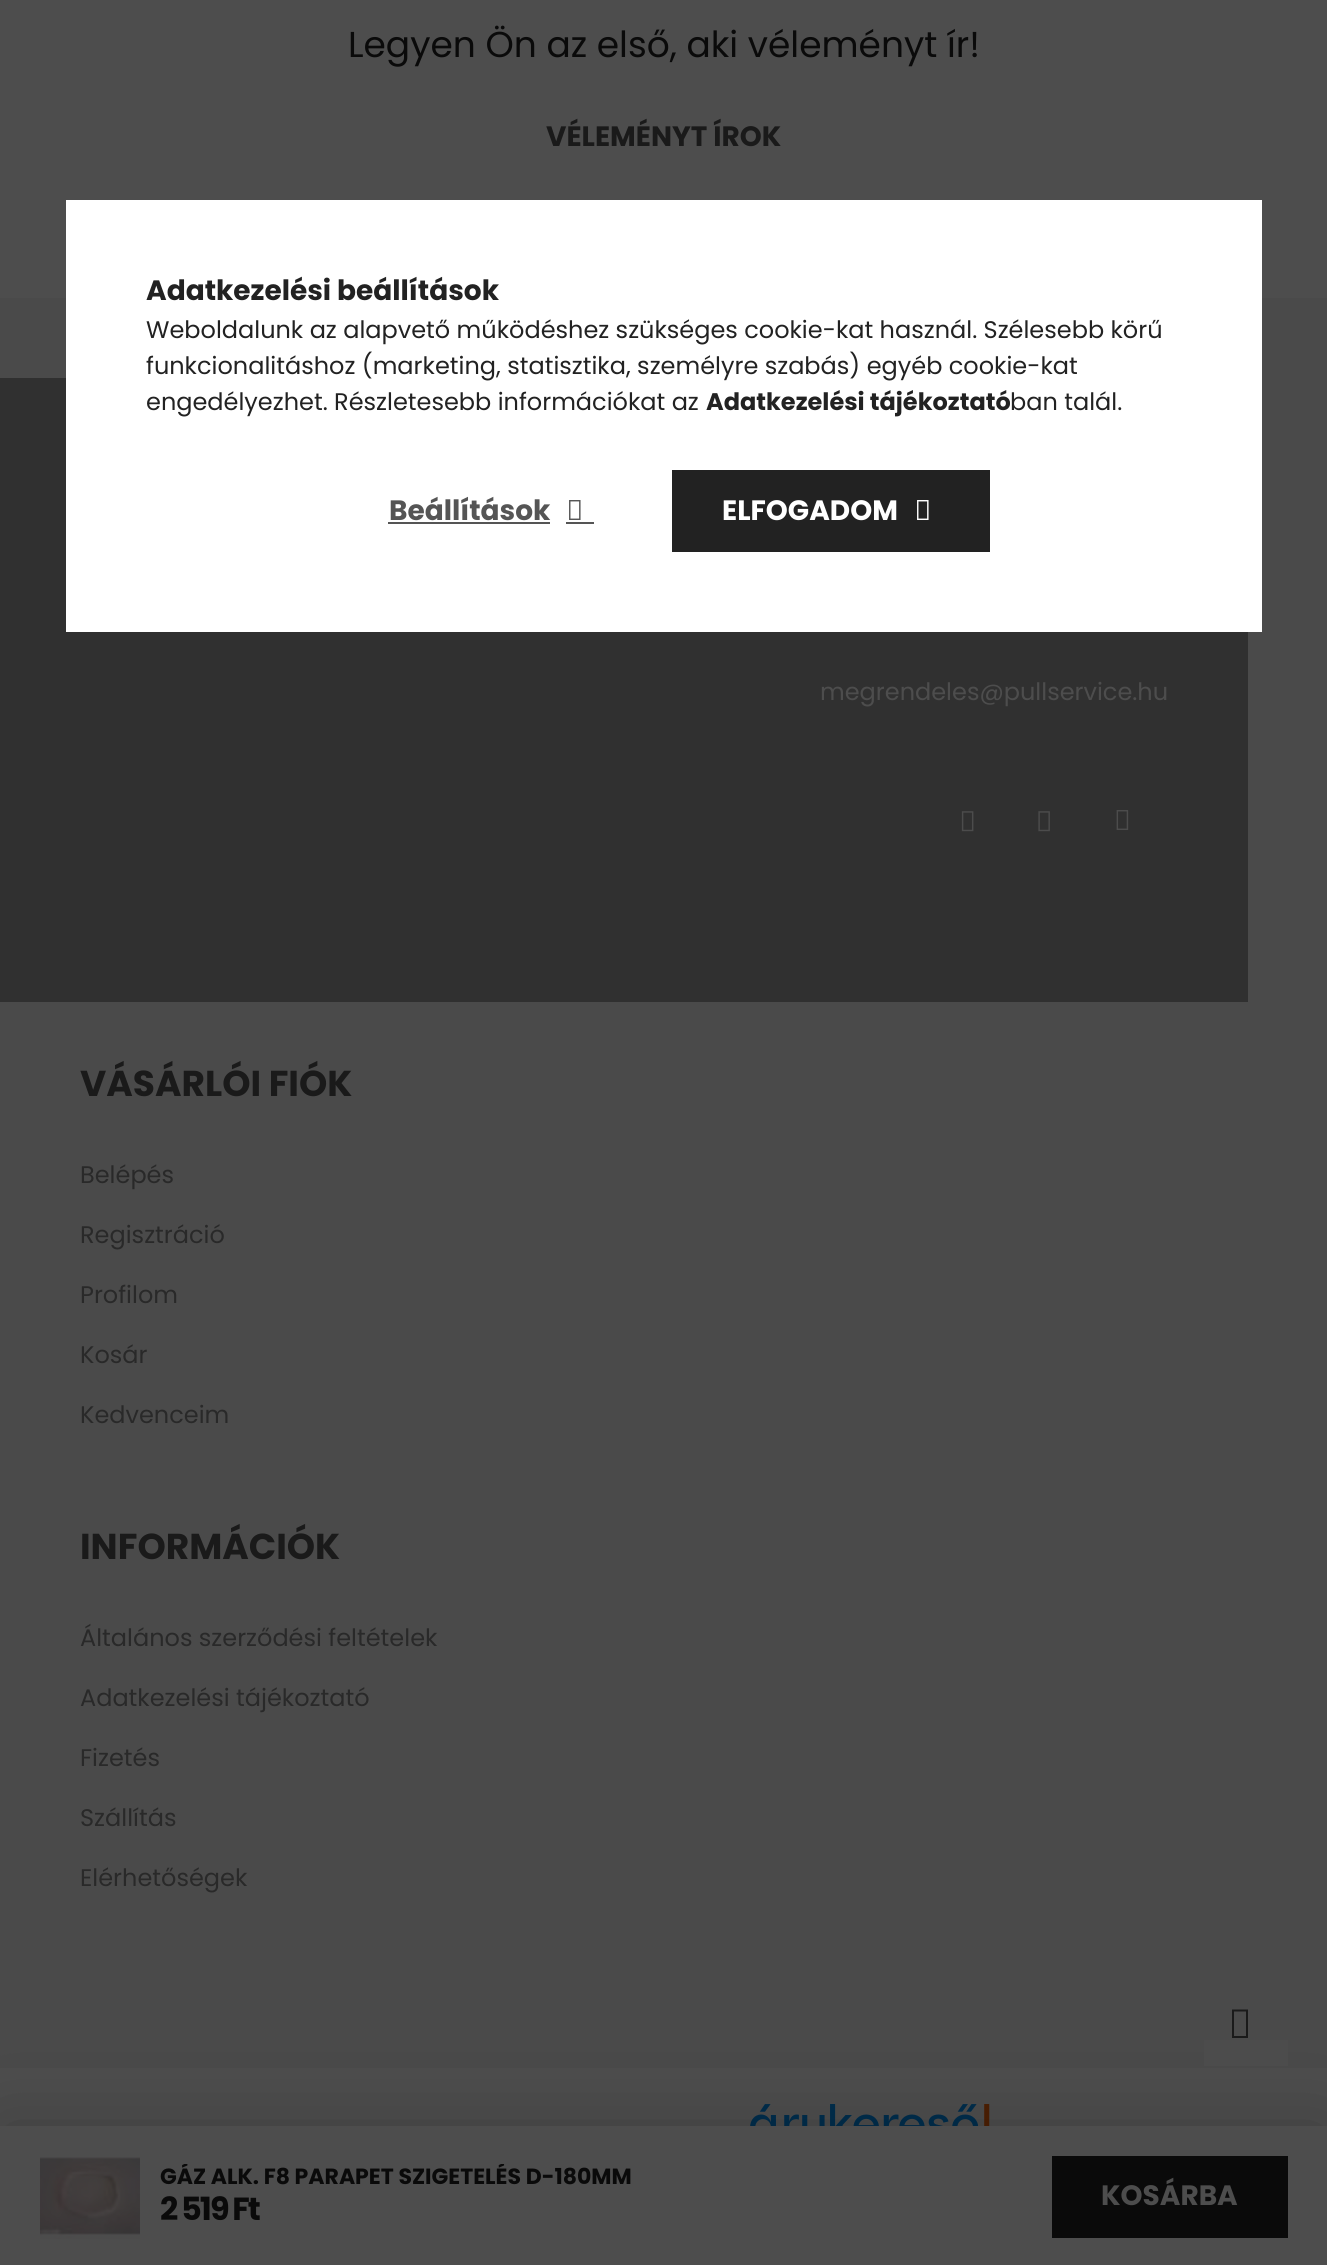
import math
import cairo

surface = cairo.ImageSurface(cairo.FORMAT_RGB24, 1327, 2265)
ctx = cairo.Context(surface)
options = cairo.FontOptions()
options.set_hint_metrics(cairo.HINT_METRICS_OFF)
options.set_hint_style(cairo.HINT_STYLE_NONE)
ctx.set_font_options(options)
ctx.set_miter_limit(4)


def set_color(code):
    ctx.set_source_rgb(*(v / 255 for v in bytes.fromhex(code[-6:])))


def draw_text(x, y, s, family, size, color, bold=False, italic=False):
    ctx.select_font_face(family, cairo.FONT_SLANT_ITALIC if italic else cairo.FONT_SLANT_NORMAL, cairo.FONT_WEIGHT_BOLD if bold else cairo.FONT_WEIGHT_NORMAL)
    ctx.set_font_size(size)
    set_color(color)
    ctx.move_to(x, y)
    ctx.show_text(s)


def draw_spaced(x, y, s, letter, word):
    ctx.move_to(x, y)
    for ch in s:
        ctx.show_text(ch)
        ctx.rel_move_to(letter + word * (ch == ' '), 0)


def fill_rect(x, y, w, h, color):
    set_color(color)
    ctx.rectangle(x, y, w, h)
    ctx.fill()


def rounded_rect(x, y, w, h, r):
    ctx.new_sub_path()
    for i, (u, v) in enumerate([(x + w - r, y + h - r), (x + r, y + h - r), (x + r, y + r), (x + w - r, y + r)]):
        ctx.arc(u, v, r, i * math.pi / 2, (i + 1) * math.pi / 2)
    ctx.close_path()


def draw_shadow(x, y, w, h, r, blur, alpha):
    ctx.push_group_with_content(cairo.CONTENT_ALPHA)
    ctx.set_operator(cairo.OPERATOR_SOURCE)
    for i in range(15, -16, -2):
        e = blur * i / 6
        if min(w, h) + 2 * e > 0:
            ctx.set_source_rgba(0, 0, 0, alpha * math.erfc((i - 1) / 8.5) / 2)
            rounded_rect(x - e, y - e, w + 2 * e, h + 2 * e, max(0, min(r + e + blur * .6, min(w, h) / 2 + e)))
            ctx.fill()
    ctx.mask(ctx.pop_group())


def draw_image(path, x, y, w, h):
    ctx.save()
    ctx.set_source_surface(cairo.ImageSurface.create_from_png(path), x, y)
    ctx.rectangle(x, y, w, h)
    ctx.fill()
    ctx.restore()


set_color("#4d4d4d")
ctx.paint()
draw_text(348, 57, "Legyen Ön az első, aki véleményt ír!", "Poppins", 36, "#0a0a0a")
draw_text(546, 146, "VÉLEMÉNYT ÍROK", "Poppins", 28, "#1a1a1a", bold=True)
fill_rect(0, 298, 1327, 1770, "#4a4a4a")
draw_image("assets/img5.png", 750, 2104, 240, 22)
set_color("#000000")
draw_shadow(0, 2126, 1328, 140, 0, 40, 0.2)
fill_rect(0, 2126, 1327, 139, "#4d4d4d")
draw_image("assets/img1.png", 40, 2157, 100, 82)
ctx.save()
ctx.rectangle(160, 2164, 872, 26)
ctx.clip()
draw_text(160, 2184, "GÁZ ALK. F8 PARAPET SZIGETELÉS D-180MM", "Poppins", 22, "#0a0a0a", bold=True)
ctx.restore()
ctx.set_font_size(32)
set_color("#0a0a0a")
draw_spaced(160, 2220, "2 519 Ft", -2, 0)
gradient = cairo.LinearGradient(580, 2197, 1288, 2197)
gradient.add_color_stop_rgba(0, 0.102, 0.102, 0.102, 1)
gradient.add_color_stop_rgba(0.33, 0.02, 0.02, 0.02, 1)
gradient.add_color_stop_rgba(0.67, 0.039, 0.039, 0.039, 1)
gradient.add_color_stop_rgba(1, 0.039, 0.039, 0.039, 1)
ctx.set_source(gradient)
ctx.rectangle(1052, 2156, 236, 82)
ctx.fill()
draw_text(1101, 2205, "KOSÁRBA", "Poppins", 28, "#4d4d4d", bold=True)
fill_rect(80, 632, 1168, 370, "#303030")
fill_rect(0, 378, 80, 624, "#303030")
draw_text(820, 700, "megrendeles@pullservice.hu", "Poppins", 24, "#4d4d4d")
draw_image("assets/img2.png", 961, 811, 13, 21)
draw_image("assets/img3.png", 1038, 811, 12, 21)
draw_image("assets/img4.png", 1116, 810, 13, 20)
draw_text(80, 1096, "VÁSÁRLÓI FIÓK", "Poppins", 36, "#1a1a1a", bold=True)
draw_text(80, 1183, "Belépés", "Poppins", 24, "#292929")
draw_text(80, 1243, "Regisztráció", "Poppins", 24, "#292929")
draw_text(80, 1303, "Profilom", "Poppins", 24, "#292929")
draw_text(80, 1363, "Kosár", "Poppins", 24, "#292929")
draw_text(80, 1423, "Kedvenceim", "Poppins", 24, "#292929")
draw_text(80, 1559, "INFORMÁCIÓK", "Poppins", 36, "#1a1a1a", bold=True)
draw_text(80, 1646, "Általános szerződési feltételek", "Poppins", 24, "#292929")
draw_text(80, 1706, "Adatkezelési tájékoztató", "Poppins", 24, "#292929")
draw_text(80, 1766, "Fizetés", "Poppins", 24, "#292929")
draw_text(80, 1826, "Szállítás", "Poppins", 24, "#292929")
draw_text(80, 1886, "Elérhetőségek", "Poppins", 24, "#292929")
fill_rect(66, 200, 1196, 432, "#ffffff")
draw_text(146, 300, "Adatkezelési beállítások", "Poppins", 28, "#222222", bold=True)
draw_text(146, 338, "Weboldalunk az alapvető működéshez szükséges cookie-kat használ. Szélesebb körű", "Poppins", 24, "#222222")
draw_text(146, 374, "funkcionalitáshoz (marketing, statisztika, személyre szabás) egyéb cookie-kat", "Poppins", 24, "#222222")
draw_text(146, 410, "engedélyezhet. Részletesebb információkat az", "Poppins", 24, "#222222")
draw_text(706, 410, "Adatkezelési tájékoztató", "Poppins", 24, "#222222", bold=True)
draw_text(1010, 410, "ban talál.", "Poppins", 24, "#222222")
draw_text(389, 520, "Beállítások", "Poppins", 28, "#555555", bold=True)
fill_rect(388, 522, 162, 2, "#555555")
draw_image("assets/img6.png", 569, 500, 12, 20)
fill_rect(566, 522, 28, 2, "#555555")
gradient = cairo.LinearGradient(36, 511, 990, 511)
gradient.add_color_stop_rgba(0, 0.333, 0.333, 0.333, 1)
gradient.add_color_stop_rgba(0.33, 0.067, 0.067, 0.067, 1)
gradient.add_color_stop_rgba(0.67, 0.133, 0.133, 0.133, 1)
gradient.add_color_stop_rgba(1, 0.133, 0.133, 0.133, 1)
ctx.set_source(gradient)
ctx.rectangle(672, 470, 318, 82)
ctx.fill()
draw_text(722, 520, "ELFOGADOM", "Poppins", 28, "#ffffff", bold=True)
draw_image("assets/img7.png", 917, 500, 12, 20)
ctx.set_source_rgba(0.302, 0.302, 0.302, 0.8)
ctx.rectangle(1204, 2040, 84, 26)
ctx.fill()
set_color("#1a1a1a")
ctx.new_path()
ctx.move_to(1232, 2038)
ctx.line_to(1232, 2009.5)
ctx.line_to(1248, 2009.5)
ctx.line_to(1248, 2038)
ctx.close_path()
ctx.move_to(1234, 2036)
ctx.line_to(1246, 2036)
ctx.line_to(1246, 2011.5)
ctx.line_to(1234, 2011.5)
ctx.close_path()
ctx.fill()
surface.write_to_png("output.png")
